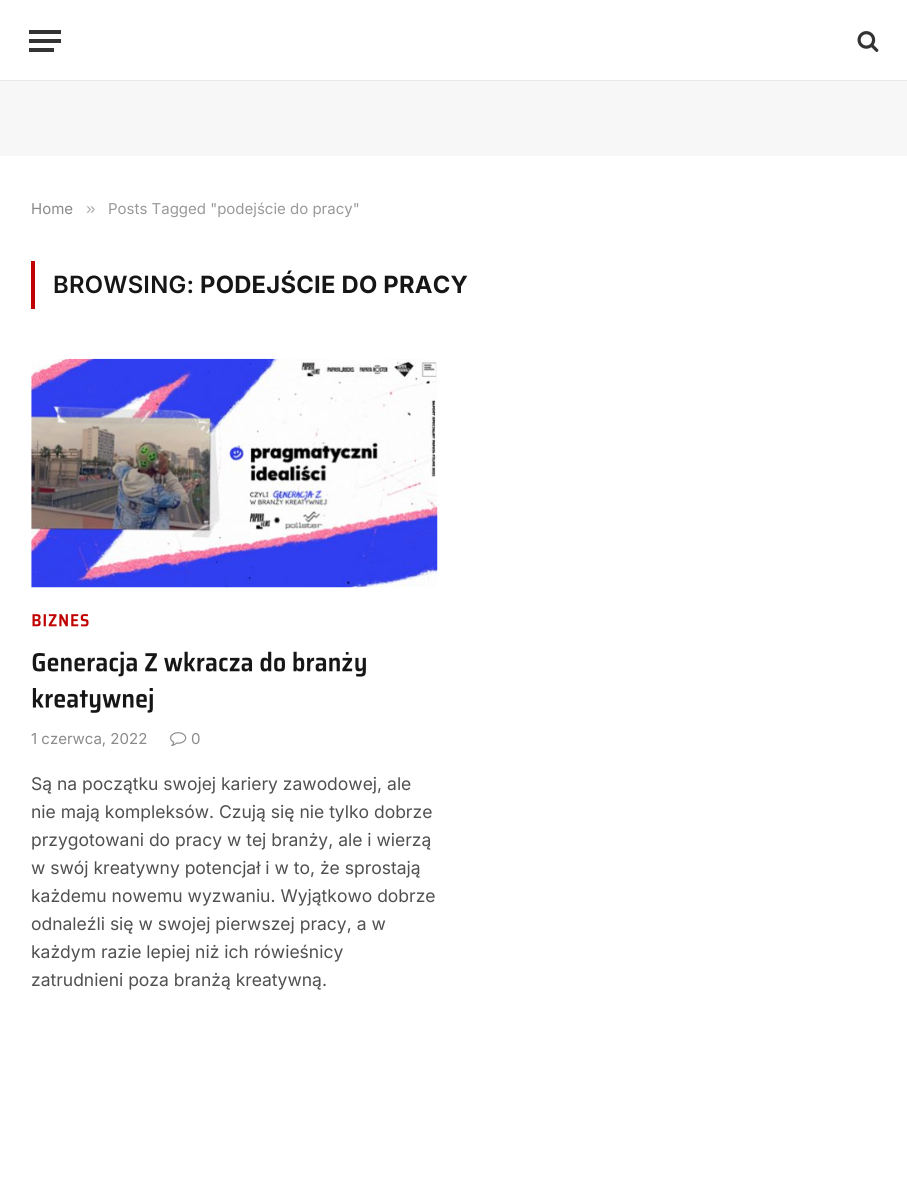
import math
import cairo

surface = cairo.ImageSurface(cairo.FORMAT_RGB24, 907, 1193)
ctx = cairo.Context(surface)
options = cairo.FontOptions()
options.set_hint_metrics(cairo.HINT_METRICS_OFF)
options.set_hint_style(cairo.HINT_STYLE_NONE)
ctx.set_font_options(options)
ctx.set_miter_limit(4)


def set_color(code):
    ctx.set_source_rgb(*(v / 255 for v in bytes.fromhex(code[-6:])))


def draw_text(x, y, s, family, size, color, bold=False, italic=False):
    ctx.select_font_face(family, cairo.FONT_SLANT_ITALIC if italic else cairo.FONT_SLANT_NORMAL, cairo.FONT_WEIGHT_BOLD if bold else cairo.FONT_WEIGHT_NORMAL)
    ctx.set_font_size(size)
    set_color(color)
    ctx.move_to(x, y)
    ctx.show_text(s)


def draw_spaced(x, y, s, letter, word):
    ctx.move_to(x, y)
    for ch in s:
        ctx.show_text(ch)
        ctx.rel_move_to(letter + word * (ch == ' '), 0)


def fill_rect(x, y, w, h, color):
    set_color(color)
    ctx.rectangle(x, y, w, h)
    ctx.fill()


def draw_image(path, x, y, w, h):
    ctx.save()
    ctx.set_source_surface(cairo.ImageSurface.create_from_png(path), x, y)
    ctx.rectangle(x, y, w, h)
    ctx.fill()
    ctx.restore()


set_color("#ffffff")
ctx.paint()
fill_rect(0, 80, 907, 1, "#e8e8e8")
fill_rect(29, 48, 25, 4, "#333333")
fill_rect(29, 30, 32, 4, "#333333")
fill_rect(29, 39, 32, 4, "#333333")
draw_image("assets/img1.png", 857, 31, 22, 21)
fill_rect(0, 81, 907, 75, "#f7f7f7")
draw_text(31, 214, "Home", "Inter", 15, "#8a8a8a")
draw_text(86, 214, "»", "Liberation Sans", 17, "#adadad")
draw_text(108, 214, "Posts Tagged \"podejście do pracy\"", "Inter", 15, "#999999")
fill_rect(31, 261, 4, 48, "#c10101")
ctx.select_font_face("Inter SemiBold")
ctx.set_font_size(23.75)
set_color("#161616")
draw_spaced(53, 293, "BROWSING:", 0.25, 0)
ctx.select_font_face("Inter", cairo.FONT_SLANT_NORMAL, cairo.FONT_WEIGHT_BOLD)
draw_spaced(200, 293, "PODEJŚCIE DO PRACY", 0.25, 0)
draw_image("assets/img2.png", 31, 358, 407, 230)
draw_image("assets/img3.png", 32, 614, 57, 13)
draw_image("assets/img4.png", 32, 651, 308, 26)
draw_image("assets/img5.png", 342, 652, 11, 20)
draw_image("assets/img6.png", 355, 657, 11, 20)
draw_image("assets/img7.png", 32, 688, 121, 25)
draw_text(31, 744, "1 czerwca, 2022", "Inter", 15, "#8a8a8a")
draw_image("assets/img8.png", 170, 732, 17, 14)
draw_text(191, 744, "0", "Inter", 15, "#8a8a8a")
draw_text(31, 790, "Są na początku swojej kariery zawodowej, ale", "Inter", 17.5, "#505050")
draw_text(31, 818, "nie mają kompleksów. Czują się nie tylko dobrze", "Inter", 17.5, "#505050")
draw_text(31, 846, "przygotowani do pracy w tej branży, ale i wierzą", "Inter", 17.5, "#505050")
draw_text(31, 874, "w swój kreatywny potencjał i w to, że sprostają", "Inter", 17.5, "#505050")
draw_text(31, 902, "każdemu nowemu wyzwaniu. Wyjątkowo dobrze", "Inter", 17.5, "#505050")
draw_text(31, 930, "odnaleźli się w swojej pierwszej pracy, a w", "Inter", 17.5, "#505050")
draw_text(31, 958, "każdym razie lepiej niż ich rówieśnicy", "Inter", 17.5, "#505050")
draw_text(31, 986, "zatrudnieni poza branżą kreatywną.", "Inter", 17.5, "#505050")
surface.write_to_png("output.png")
